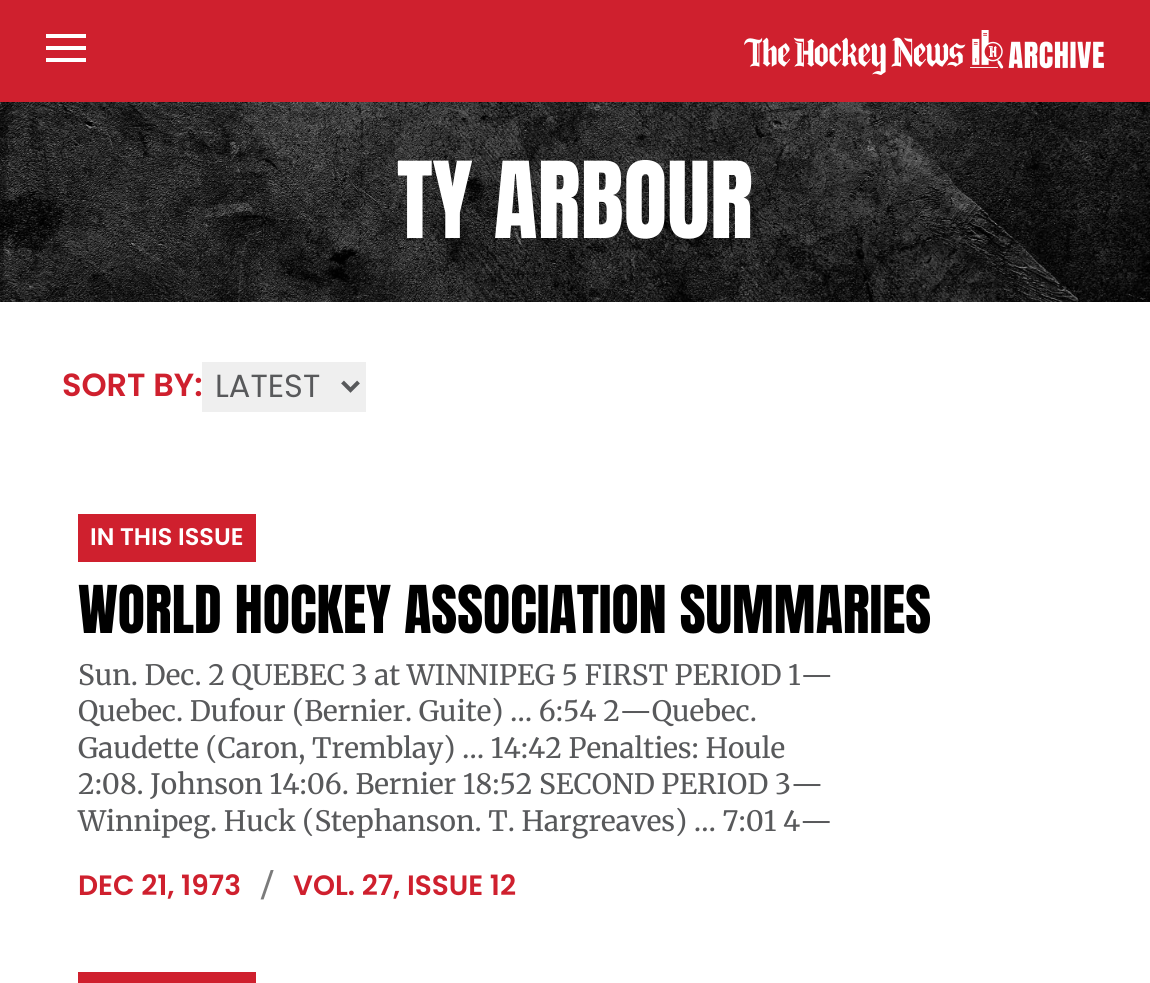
import math
import cairo

surface = cairo.ImageSurface(cairo.FORMAT_RGB24, 1150, 983)
ctx = cairo.Context(surface)
options = cairo.FontOptions()
options.set_hint_metrics(cairo.HINT_METRICS_OFF)
options.set_hint_style(cairo.HINT_STYLE_NONE)
ctx.set_font_options(options)
ctx.set_miter_limit(4)


def set_color(code):
    ctx.set_source_rgb(*(v / 255 for v in bytes.fromhex(code[-6:])))


def draw_text(x, y, s, family, size, color, bold=False, italic=False):
    ctx.select_font_face(family, cairo.FONT_SLANT_ITALIC if italic else cairo.FONT_SLANT_NORMAL, cairo.FONT_WEIGHT_BOLD if bold else cairo.FONT_WEIGHT_NORMAL)
    ctx.set_font_size(size)
    set_color(color)
    ctx.move_to(x, y)
    ctx.show_text(s)


def fill_rect(x, y, w, h, color):
    set_color(color)
    ctx.rectangle(x, y, w, h)
    ctx.fill()


def draw_image(path, x, y, w, h):
    ctx.save()
    ctx.set_source_surface(cairo.ImageSurface.create_from_png(path), x, y)
    ctx.rectangle(x, y, w, h)
    ctx.fill()
    ctx.restore()


set_color("#ffffff")
ctx.paint()
fill_rect(0, 0, 1150, 102, "#cf202e")
fill_rect(46, 46, 40, 4, "#ffffff")
fill_rect(46, 34, 40, 4, "#ffffff")
fill_rect(46, 58, 40, 4, "#ffffff")
draw_image("assets/img1.png", 744, 30, 360, 45)
draw_image("assets/img2.png", 0, 102, 1150, 200)
draw_text(397, 238, "TY ARBOUR", "Anton", 90, "#ffffff")
draw_text(62, 396, "SORT BY:", "Poppins SemiBold", 32, "#cf202e")
fill_rect(202, 362, 164, 50, "#efefef")
ctx.new_path()
ctx.move_to(342.5, 382)
ctx.line_to(350.5, 390)
ctx.line_to(358.5, 382)
set_color("#58595b")
ctx.set_line_width(4)
ctx.stroke()
draw_text(215, 397, "LATEST", "Poppins", 32, "#58595b")
fill_rect(78, 514, 178, 48, "#cf202e")
draw_text(90, 545, "IN THIS ISSUE", "Poppins SemiBold", 24, "#ffffff")
draw_text(78, 633, "WORLD HOCKEY ASSOCIATION SUMMARIES", "Anton", 56, "#000000")
draw_text(78, 685, "Sun. Dec. 2 QUEBEC 3 at WINNIPEG 5 FIRST PERIOD 1—", "Merriweather", 28, "#58595b")
draw_text(78, 721, "Quebec. Dufour (Bernier. Guite) … 6:54 2—Quebec.", "Merriweather", 28, "#58595b")
draw_text(78, 758, "Gaudette (Caron, Tremblay) … 14:42 Penalties: Houle", "Merriweather", 28, "#58595b")
draw_text(78, 794, "2:08. Johnson 14:06. Bernier 18:52 SECOND PERIOD 3—", "Merriweather", 28, "#58595b")
draw_text(78, 831, "Winnipeg. Huck (Stephanson. T. Hargreaves) … 7:01 4—", "Merriweather", 28, "#58595b")
draw_text(78, 895, "DEC 21, 1973", "Poppins SemiBold", 28, "#cf202e")
draw_text(261, 899, "/", "Liberation Serif", 44, "#7b7b7b", bold=True)
draw_text(293, 895, "VOL. 27, ISSUE 12", "Poppins SemiBold", 28, "#cf202e")
fill_rect(78, 972, 178, 11, "#cf202e")
surface.write_to_png("output.png")
